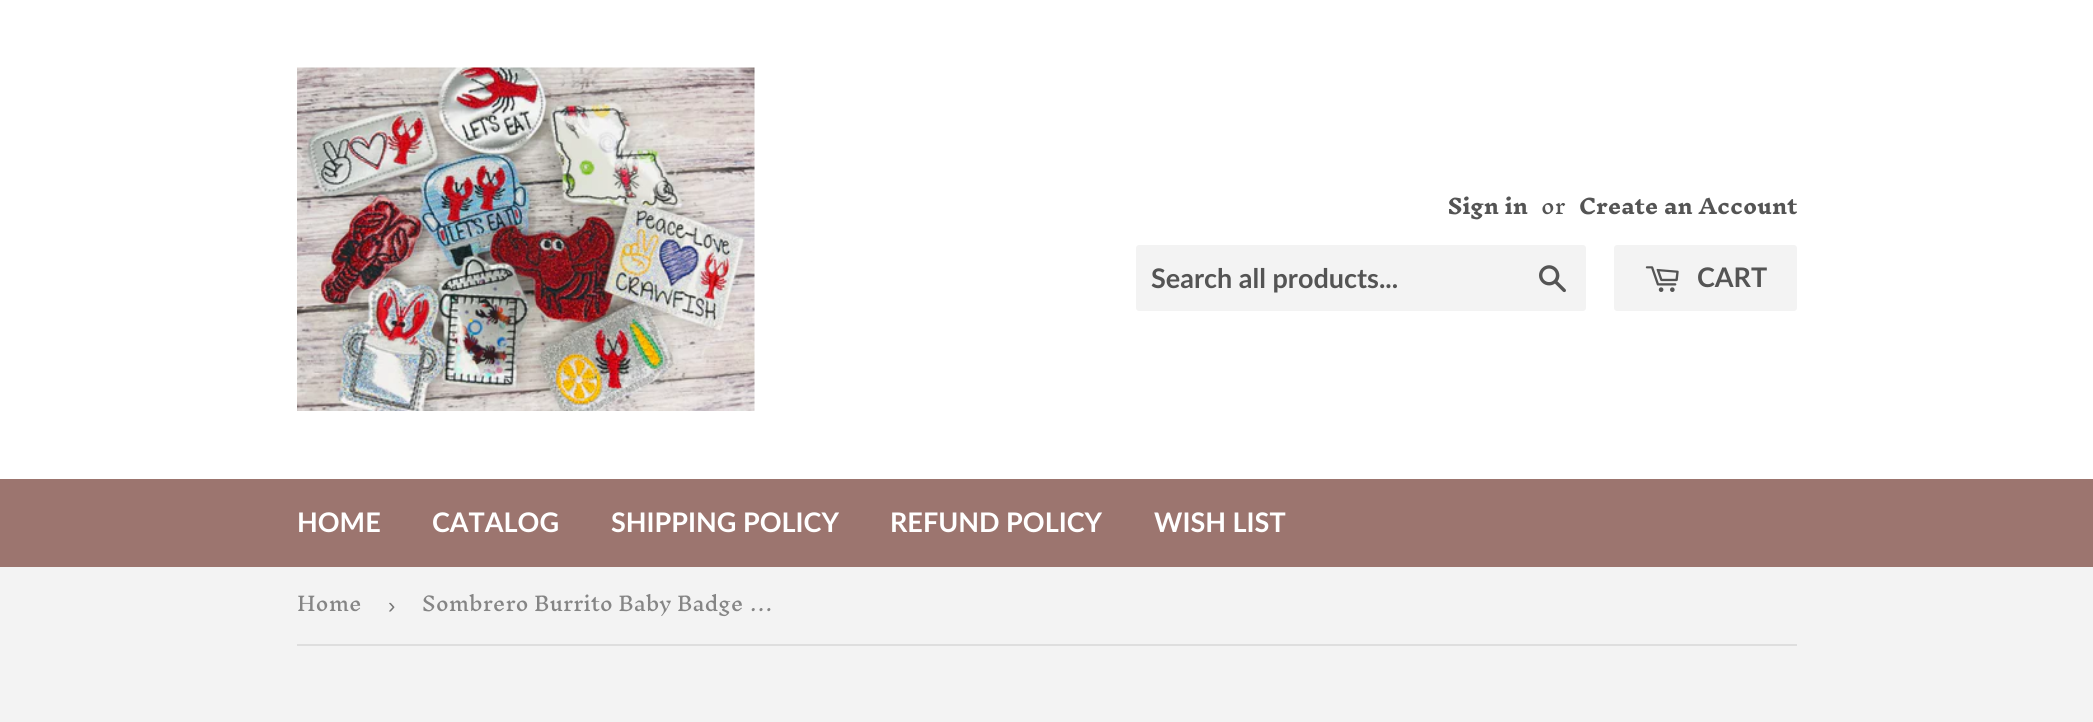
import math
import cairo

surface = cairo.ImageSurface(cairo.FORMAT_RGB24, 2093, 722)
ctx = cairo.Context(surface)
options = cairo.FontOptions()
options.set_hint_metrics(cairo.HINT_METRICS_OFF)
options.set_hint_style(cairo.HINT_STYLE_NONE)
ctx.set_font_options(options)
ctx.set_miter_limit(4)


def set_color(code):
    ctx.set_source_rgb(*(v / 255 for v in bytes.fromhex(code[-6:])))


def draw_text(x, y, s, family, size, color, bold=False, italic=False):
    ctx.select_font_face(family, cairo.FONT_SLANT_ITALIC if italic else cairo.FONT_SLANT_NORMAL, cairo.FONT_WEIGHT_BOLD if bold else cairo.FONT_WEIGHT_NORMAL)
    ctx.set_font_size(size)
    set_color(color)
    ctx.move_to(x, y)
    ctx.show_text(s)


def fill_rect(x, y, w, h, color):
    set_color(color)
    ctx.rectangle(x, y, w, h)
    ctx.fill()


def rounded_rect(x, y, w, h, r):
    ctx.new_sub_path()
    for i, (u, v) in enumerate([(x + w - r, y + h - r), (x + r, y + h - r), (x + r, y + r), (x + w - r, y + r)]):
        ctx.arc(u, v, r, i * math.pi / 2, (i + 1) * math.pi / 2)
    ctx.close_path()


def draw_image(path, x, y, w, h):
    ctx.save()
    ctx.set_source_surface(cairo.ImageSurface.create_from_png(path), x, y)
    ctx.rectangle(x, y, w, h)
    ctx.fill()
    ctx.restore()


set_color("#f3f3f3")
ctx.paint()
fill_rect(0, 0, 2093, 479, "#ffffff")
draw_image("assets/img1.png", 297, 67, 458, 344)
draw_text(1448, 214, "Sign in", "Inknut Antiqua", 20.4, "#545454", bold=True)
draw_text(1541, 214, "or", "Inknut Antiqua", 20.4, "#545454")
draw_text(1579, 214, "Create an Account", "Inknut Antiqua", 20.4, "#545454", bold=True)
set_color("#f3f3f3")
rounded_rect(1136, 245, 450, 66, 3)
ctx.fill()
draw_text(1151, 288, "Search all products...", "Lato", 27, "#545454", bold=True)
draw_image("assets/img2.png", 1539, 265, 27, 28)
set_color("#f3f3f3")
rounded_rect(1614, 245, 183, 66, 3)
ctx.fill()
draw_image("assets/img3.png", 1645, 266, 34, 26)
draw_text(1697, 287, "CART", "Lato", 27, "#545454", bold=True)
fill_rect(0, 479, 2093, 88, "#9c756f")
draw_text(297, 532, "HOME", "Lato", 27, "#ffffff", bold=True)
draw_text(432, 532, "CATALOG", "Lato", 27, "#ffffff", bold=True)
draw_text(611, 532, "SHIPPING POLICY", "Lato", 27, "#ffffff", bold=True)
draw_text(890, 532, "REFUND POLICY", "Lato", 27, "#ffffff", bold=True)
draw_text(1154, 532, "WISH LIST", "Lato", 27, "#ffffff", bold=True)
fill_rect(297, 644, 1500, 2, "#dedede")
draw_text(297, 611, "Home", "Inknut Antiqua", 19.5, "#858585")
draw_text(388, 613, "›", "Liberation Sans", 22, "#767676")
draw_text(422, 611, "Sombrero Burrito Baby Badge …", "Inknut Antiqua", 19.5, "#858585")
surface.write_to_png("output.png")
